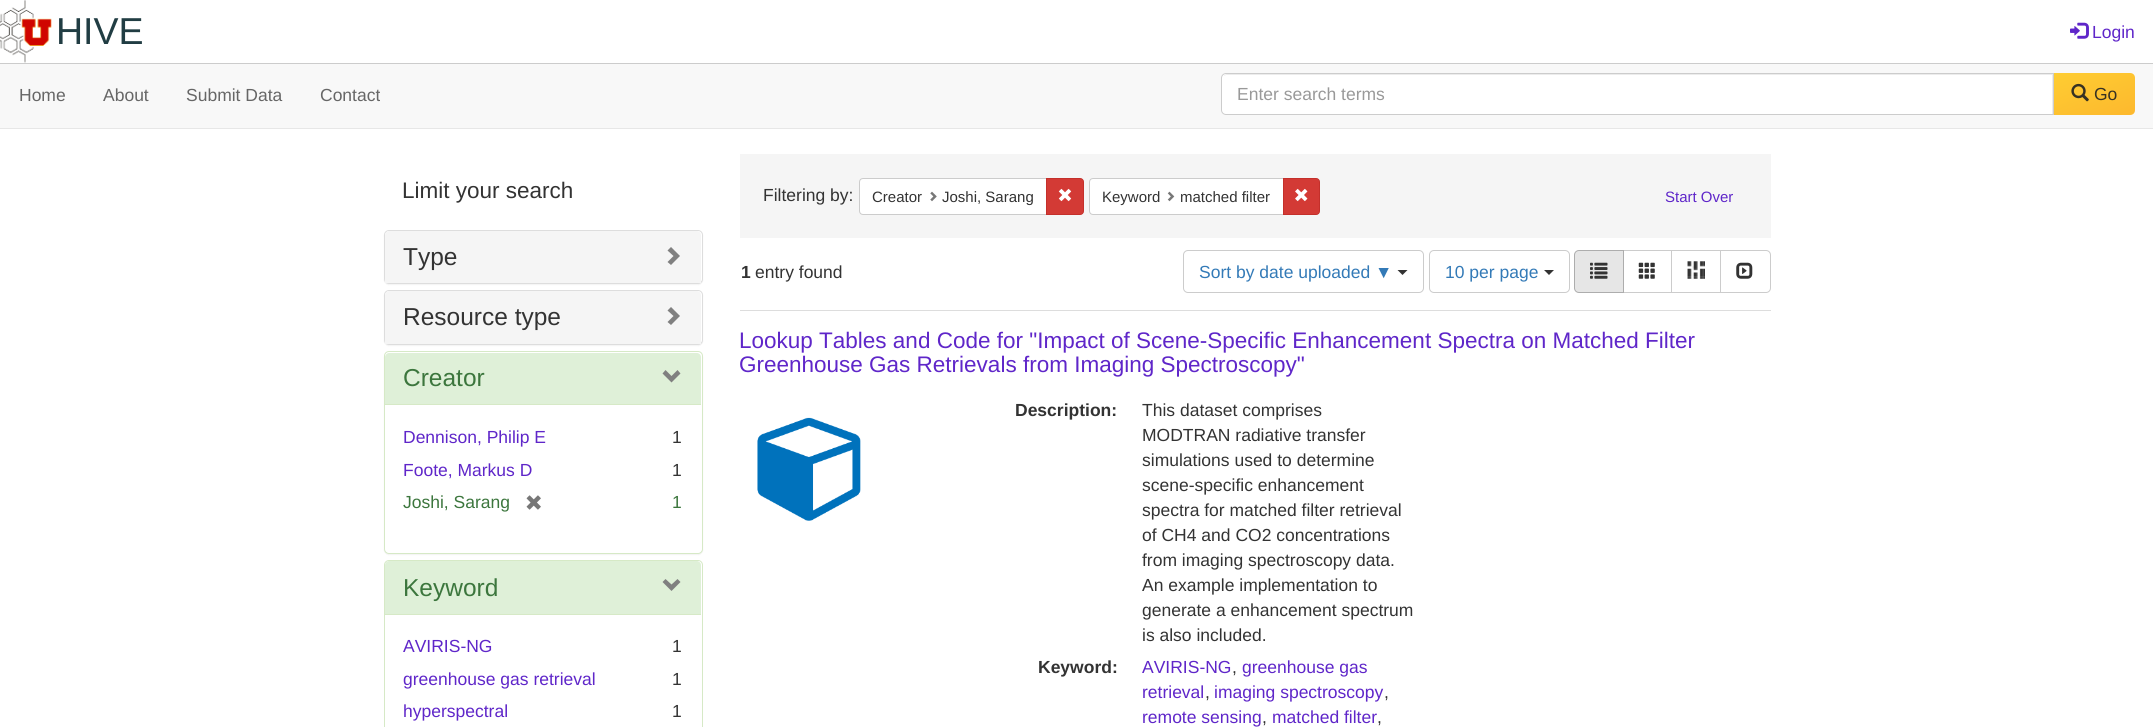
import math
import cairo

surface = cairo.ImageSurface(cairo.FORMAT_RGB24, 2153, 727)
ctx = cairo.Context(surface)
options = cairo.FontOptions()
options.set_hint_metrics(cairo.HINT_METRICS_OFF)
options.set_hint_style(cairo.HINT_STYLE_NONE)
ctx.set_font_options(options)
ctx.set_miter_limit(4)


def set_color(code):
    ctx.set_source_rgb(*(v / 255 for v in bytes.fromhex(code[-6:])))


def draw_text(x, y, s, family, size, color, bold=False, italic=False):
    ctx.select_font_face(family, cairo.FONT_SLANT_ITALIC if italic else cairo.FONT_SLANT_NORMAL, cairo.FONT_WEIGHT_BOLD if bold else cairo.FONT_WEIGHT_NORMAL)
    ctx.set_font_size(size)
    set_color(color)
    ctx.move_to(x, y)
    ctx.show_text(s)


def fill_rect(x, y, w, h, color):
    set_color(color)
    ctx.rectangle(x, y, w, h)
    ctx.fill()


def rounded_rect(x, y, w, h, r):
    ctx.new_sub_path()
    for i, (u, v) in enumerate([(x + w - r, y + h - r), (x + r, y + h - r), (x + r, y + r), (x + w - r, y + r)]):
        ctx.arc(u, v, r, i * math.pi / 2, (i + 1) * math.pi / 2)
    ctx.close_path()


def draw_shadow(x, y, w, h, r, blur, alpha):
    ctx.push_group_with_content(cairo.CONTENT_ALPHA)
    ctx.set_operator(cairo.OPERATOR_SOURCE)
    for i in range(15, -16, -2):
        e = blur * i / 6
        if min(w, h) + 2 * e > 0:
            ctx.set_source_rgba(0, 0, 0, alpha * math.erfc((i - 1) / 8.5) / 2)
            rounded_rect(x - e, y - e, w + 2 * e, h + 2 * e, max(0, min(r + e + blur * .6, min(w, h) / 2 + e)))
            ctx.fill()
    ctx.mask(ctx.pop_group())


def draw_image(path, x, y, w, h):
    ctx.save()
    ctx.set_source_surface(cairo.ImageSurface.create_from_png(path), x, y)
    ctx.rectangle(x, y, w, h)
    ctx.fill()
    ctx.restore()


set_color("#ffffff")
ctx.paint()
fill_rect(0, 63, 2153, 1, "#cccccc")
draw_image("assets/img1.png", 0, 0, 52, 63)
draw_text(56, 44, "HIVE", "Liberation Sans", 37.5, "#213d43")
draw_image("assets/img2.png", 2070, 22, 19, 17)
draw_text(2092, 38, "Login", "Liberation Sans", 17.5, "#5f26c9")
fill_rect(0, 64, 2153, 64, "#f8f8f8")
fill_rect(0, 128, 2153, 1, "#e7e7e7")
draw_text(19, 101, "Home", "Liberation Sans", 17.5, "#666666")
draw_text(103, 101, "About", "Liberation Sans", 17.5, "#666666")
draw_text(186, 101, "Submit Data", "Liberation Sans", 17.5, "#666666")
draw_text(320, 101, "Contact", "Liberation Sans", 17.5, "#666666")
set_color("#ffffff")
ctx.new_path()
ctx.move_to(1226, 73)
ctx.line_to(2054, 73)
ctx.line_to(2054, 115)
ctx.line_to(1226, 115)
ctx.curve_to(1223, 115, 1221, 113, 1221, 110)
ctx.line_to(1221, 78)
ctx.curve_to(1221, 75, 1223, 73, 1226, 73)
ctx.close_path()
ctx.fill()
set_color("#ececec")
ctx.new_path()
ctx.move_to(1226, 75)
ctx.line_to(2052, 75)
ctx.line_to(2052, 114)
ctx.line_to(2053, 114)
ctx.line_to(2053, 74)
ctx.line_to(1227, 74)
ctx.curve_to(1226, 74, 1224, 75, 1224, 76)
ctx.close_path()
ctx.fill()
ctx.new_path()
ctx.move_to(1226, 73.5)
ctx.line_to(2053.5, 73.5)
ctx.line_to(2053.5, 114.5)
ctx.line_to(1226, 114.5)
ctx.curve_to(1223.5, 114.5, 1221.5, 112.5, 1221.5, 110)
ctx.line_to(1221.5, 78)
ctx.curve_to(1221.5, 75.5, 1223.5, 73.5, 1226, 73.5)
ctx.close_path()
set_color("#cccccc")
ctx.set_line_width(1)
ctx.stroke()
draw_text(1237, 100, "Enter search terms", "Liberation Sans", 17.5, "#999999")
gradient = cairo.LinearGradient(2082, 62, 2107, 126)
gradient.add_color_stop_rgba(0, 0.996, 0.804, 0.196, 1)
gradient.add_color_stop_rgba(1, 0.992, 0.722, 0.18, 1)
ctx.set_source(gradient)
ctx.new_path()
ctx.move_to(2054, 73)
ctx.line_to(2130, 73)
ctx.curve_to(2133, 73, 2135, 75, 2135, 78)
ctx.line_to(2135, 110)
ctx.curve_to(2135, 113, 2133, 115, 2130, 115)
ctx.line_to(2054, 115)
ctx.close_path()
ctx.fill()
draw_image("assets/img3.png", 2071, 83, 18, 19)
draw_text(2094, 100, "Go", "Liberation Sans", 17.5, "#373223")
draw_text(402, 198, "Limit your search", "Liberation Sans", 22.5, "#333333")
set_color("#000000")
draw_shadow(384, 231, 319, 54, 5, 0.5, 0.05)
set_color("#ffffff")
rounded_rect(384.5, 230.5, 318, 53, 4.5)
ctx.fill_preserve()
set_color("#dddddd")
ctx.stroke()
set_color("#f5f5f5")
ctx.new_path()
ctx.move_to(389, 231)
ctx.line_to(697, 231)
ctx.curve_to(699, 231, 701, 233, 701, 235)
ctx.line_to(701, 283)
ctx.line_to(385, 283)
ctx.line_to(385, 235)
ctx.curve_to(385, 233, 387, 231, 389, 231)
ctx.close_path()
ctx.fill()
draw_text(403, 265, "Type", "Liberation Sans", 24.5, "#333333")
set_color("#808080")
ctx.new_path()
ctx.move_to(680, 256)
ctx.line_to(671, 265)
ctx.line_to(667.5, 262)
ctx.line_to(673.5, 256)
ctx.line_to(667.5, 250.5)
ctx.line_to(671, 247)
ctx.close_path()
ctx.fill()
set_color("#000000")
draw_shadow(384, 291, 319, 55, 5, 0.5, 0.05)
set_color("#ffffff")
rounded_rect(384.5, 290.5, 318, 54, 4.5)
ctx.fill_preserve()
set_color("#dddddd")
ctx.stroke()
set_color("#f5f5f5")
ctx.new_path()
ctx.move_to(389, 291)
ctx.line_to(697, 291)
ctx.curve_to(699, 291, 701, 293, 701, 295)
ctx.line_to(701, 344)
ctx.line_to(385, 344)
ctx.line_to(385, 295)
ctx.curve_to(385, 293, 387, 291, 389, 291)
ctx.close_path()
ctx.fill()
draw_text(403, 325, "Resource type", "Liberation Sans", 24.5, "#333333")
set_color("#808080")
ctx.new_path()
ctx.move_to(680, 316)
ctx.line_to(671, 325)
ctx.line_to(667.5, 322)
ctx.line_to(673.5, 316)
ctx.line_to(667.5, 310.5)
ctx.line_to(671, 307)
ctx.close_path()
ctx.fill()
set_color("#000000")
draw_shadow(384, 353, 319, 202, 5, 0.5, 0.05)
set_color("#ffffff")
rounded_rect(384.5, 351.5, 318, 202, 4.5)
ctx.fill_preserve()
set_color("#d6e9c6")
ctx.stroke()
set_color("#dff0d8")
ctx.new_path()
ctx.move_to(389, 353)
ctx.line_to(697, 353)
ctx.curve_to(699, 353, 701, 355, 701, 357)
ctx.line_to(701, 404)
ctx.line_to(385, 404)
ctx.line_to(385, 357)
ctx.curve_to(385, 355, 387, 353, 389, 353)
ctx.close_path()
ctx.fill()
draw_text(403, 386, "Creator", "Liberation Sans", 24.5, "#3c763d")
set_color("#808080")
ctx.new_path()
ctx.move_to(680.5, 373.5)
ctx.line_to(671.5, 382.5)
ctx.line_to(662.5, 373.5)
ctx.line_to(665.5, 370)
ctx.line_to(671.5, 376)
ctx.line_to(677.5, 370)
ctx.close_path()
ctx.fill()
fill_rect(385, 404, 316, 1, "#d6e9c6")
draw_text(403, 443, "Dennison, Philip E", "Liberation Sans", 17.5, "#5f26c9")
draw_text(672, 443, "1", "Liberation Sans", 17.5, "#333333")
draw_text(403, 476, "Foote, Markus D", "Liberation Sans", 17.5, "#5f26c9")
draw_text(672, 476, "1", "Liberation Sans", 17.5, "#333333")
draw_text(403, 508, "Joshi, Sarang", "Liberation Sans", 17.5, "#3c763d")
draw_image("assets/img4.png", 526, 495, 15, 15)
draw_text(672, 508, "1", "Liberation Sans", 17.5, "#3c763d")
rounded_rect(384.5, 560.5, 318, 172, 4.5)
set_color("#d6e9c6")
ctx.stroke()
set_color("#dff0d8")
ctx.new_path()
ctx.move_to(389, 561)
ctx.line_to(697, 561)
ctx.curve_to(699, 561, 701, 563, 701, 565)
ctx.line_to(701, 614)
ctx.line_to(385, 614)
ctx.line_to(385, 565)
ctx.curve_to(385, 563, 387, 561, 389, 561)
ctx.close_path()
ctx.fill()
draw_text(403, 596, "Keyword", "Liberation Sans", 24.5, "#3c763d")
set_color("#808080")
ctx.new_path()
ctx.move_to(680.5, 582)
ctx.line_to(671.5, 591)
ctx.line_to(662.5, 582)
ctx.line_to(665.5, 579)
ctx.line_to(671.5, 584.5)
ctx.line_to(677.5, 579)
ctx.close_path()
ctx.fill()
fill_rect(385, 614, 316, 1, "#d6e9c6")
draw_text(403, 652, "AVIRIS-NG", "Liberation Sans", 17.5, "#5f26c9")
draw_text(672, 652, "1", "Liberation Sans", 17.5, "#333333")
draw_text(403, 685, "greenhouse gas retrieval", "Liberation Sans", 17.5, "#5f26c9")
draw_text(672, 685, "1", "Liberation Sans", 17.5, "#333333")
draw_text(403, 717, "hyperspectral", "Liberation Sans", 17.5, "#5f26c9")
draw_text(672, 717, "1", "Liberation Sans", 17.5, "#333333")
fill_rect(740, 154, 1031, 84, "#f5f5f5")
draw_text(763, 201, "Filtering by:", "Liberation Sans", 17.5, "#333333")
set_color("#ffffff")
ctx.new_path()
ctx.move_to(863, 178.5)
ctx.line_to(1047.5, 178.5)
ctx.line_to(1047.5, 214.5)
ctx.line_to(863, 214.5)
ctx.curve_to(861, 214.5, 859.5, 213, 859.5, 211)
ctx.line_to(859.5, 182)
ctx.curve_to(859.5, 180, 861, 178.5, 863, 178.5)
ctx.close_path()
ctx.fill_preserve()
set_color("#cccccc")
ctx.stroke()
draw_text(872, 202, "Creator", "Liberation Sans", 15, "#333333")
draw_image("assets/img5.png", 930, 191, 7, 11)
draw_text(942, 202, "Joshi, Sarang", "Liberation Sans", 15, "#333333")
set_color("#d33a35")
ctx.new_path()
ctx.move_to(1046.5, 178.5)
ctx.line_to(1080, 178.5)
ctx.curve_to(1082, 178.5, 1083.5, 180, 1083.5, 182)
ctx.line_to(1083.5, 211)
ctx.curve_to(1083.5, 213, 1082, 214.5, 1080, 214.5)
ctx.line_to(1046.5, 214.5)
ctx.close_path()
ctx.fill_preserve()
set_color("#c4302b")
ctx.stroke()
draw_image("assets/img6.png", 1058, 188, 14, 14)
set_color("#ffffff")
ctx.new_path()
ctx.move_to(1093, 178.5)
ctx.line_to(1283.5, 178.5)
ctx.line_to(1283.5, 214.5)
ctx.line_to(1093, 214.5)
ctx.curve_to(1091, 214.5, 1089.5, 213, 1089.5, 211)
ctx.line_to(1089.5, 182)
ctx.curve_to(1089.5, 180, 1091, 178.5, 1093, 178.5)
ctx.close_path()
ctx.fill_preserve()
set_color("#cccccc")
ctx.stroke()
draw_text(1102, 202, "Keyword", "Liberation Sans", 15, "#333333")
draw_image("assets/img7.png", 1167, 191, 8, 11)
draw_text(1180, 202, "matched filter", "Liberation Sans", 15, "#333333")
set_color("#d33a35")
ctx.new_path()
ctx.move_to(1283.5, 178.5)
ctx.line_to(1316, 178.5)
ctx.curve_to(1318, 178.5, 1319.5, 180, 1319.5, 182)
ctx.line_to(1319.5, 211)
ctx.curve_to(1319.5, 213, 1318, 214.5, 1316, 214.5)
ctx.line_to(1283.5, 214.5)
ctx.close_path()
ctx.fill_preserve()
set_color("#c4302b")
ctx.stroke()
draw_image("assets/img8.png", 1295, 188, 13, 14)
draw_text(1665, 202, "Start Over", "Liberation Sans", 15, "#5f26c9")
fill_rect(740, 310, 1031, 1, "#dddddd")
draw_text(741, 278, "1", "Liberation Sans", 17.5, "#333333", bold=True)
draw_text(755, 278, "entry found", "Liberation Sans", 17.5, "#333333")
rounded_rect(1183.5, 250.5, 240, 42, 4.5)
set_color("#cccccc")
ctx.stroke()
draw_text(1199, 278, "Sort by date uploaded ▼", "Liberation Sans", 17.5, "#337ab7")
set_color("#333333")
ctx.new_path()
ctx.move_to(1397.5, 270)
ctx.line_to(1407.5, 270)
ctx.line_to(1402.5, 275)
ctx.close_path()
ctx.fill()
rounded_rect(1429.5, 250.5, 140, 42, 4.5)
set_color("#cccccc")
ctx.stroke()
draw_text(1445, 278, "10 per page", "Liberation Sans", 17.5, "#337ab7")
set_color("#333333")
ctx.new_path()
ctx.move_to(1544, 270)
ctx.line_to(1554, 270)
ctx.line_to(1549, 275)
ctx.close_path()
ctx.fill()
ctx.rectangle(1623.5, 250.5, 49, 42)
set_color("#cccccc")
ctx.stroke()
set_color("#e6e6e6")
ctx.new_path()
ctx.move_to(1579, 250.5)
ctx.line_to(1623.5, 250.5)
ctx.line_to(1623.5, 292.5)
ctx.line_to(1579, 292.5)
ctx.curve_to(1576.5, 292.5, 1574.5, 290.5, 1574.5, 288)
ctx.line_to(1574.5, 255)
ctx.curve_to(1574.5, 252.5, 1576.5, 250.5, 1579, 250.5)
ctx.close_path()
ctx.fill_preserve()
set_color("#adadad")
ctx.stroke()
draw_image("assets/img9.png", 1590, 262, 18, 17)
draw_image("assets/img10.png", 1638, 262, 17, 17)
fill_rect(1672, 251, 1, 41, "#ffffff")
ctx.rectangle(1671.5, 250.5, 49, 42)
set_color("#cccccc")
ctx.stroke()
draw_image("assets/img11.png", 1687, 261, 18, 18)
set_color("#ffffff")
ctx.new_path()
ctx.move_to(1720.5, 250.5)
ctx.line_to(1766, 250.5)
ctx.curve_to(1768.5, 250.5, 1770.5, 252.5, 1770.5, 255)
ctx.line_to(1770.5, 288)
ctx.curve_to(1770.5, 290.5, 1768.5, 292.5, 1766, 292.5)
ctx.line_to(1720.5, 292.5)
ctx.close_path()
ctx.fill_preserve()
set_color("#cccccc")
ctx.stroke()
draw_image("assets/img12.png", 1736, 262, 17, 17)
draw_text(739, 348, "Lookup Tables and Code for \"Impact of Scene-Specific Enhancement Spectra on Matched Filter", "Liberation Sans", 22.5, "#5f26c9")
draw_text(739, 372, "Greenhouse Gas Retrievals from Imaging Spectroscopy\"", "Liberation Sans", 22.5, "#5f26c9")
draw_image("assets/img13.png", 757, 417, 104, 104)
draw_text(1015, 416, "Description:", "Liberation Sans", 17.5, "#333333", bold=True)
draw_text(1142, 416, "This dataset comprises", "Liberation Sans", 17.5, "#333333")
draw_text(1142, 441, "MODTRAN radiative transfer", "Liberation Sans", 17.5, "#333333")
draw_text(1142, 466, "simulations used to determine", "Liberation Sans", 17.5, "#333333")
draw_text(1142, 491, "scene-specific enhancement", "Liberation Sans", 17.5, "#333333")
draw_text(1142, 516, "spectra for matched filter retrieval", "Liberation Sans", 17.5, "#333333")
draw_text(1142, 541, "of CH4 and CO2 concentrations", "Liberation Sans", 17.5, "#333333")
draw_text(1142, 566, "from imaging spectroscopy data.", "Liberation Sans", 17.5, "#333333")
draw_text(1142, 591, "An example implementation to", "Liberation Sans", 17.5, "#333333")
draw_text(1142, 616, "generate a enhancement spectrum", "Liberation Sans", 17.5, "#333333")
draw_text(1142, 641, "is also included.", "Liberation Sans", 17.5, "#333333")
draw_text(1038, 673, "Keyword:", "Liberation Sans", 17.5, "#333333", bold=True)
draw_text(1142, 673, "AVIRIS-NG", "Liberation Sans", 17.5, "#5f26c9")
draw_text(1232, 673, ",", "Liberation Sans", 17.5, "#333333")
draw_text(1242, 673, "greenhouse gas", "Liberation Sans", 17.5, "#5f26c9")
draw_text(1142, 698, "retrieval", "Liberation Sans", 17.5, "#5f26c9")
draw_text(1205, 698, ",", "Liberation Sans", 17.5, "#333333")
draw_text(1214, 698, "imaging spectroscopy", "Liberation Sans", 17.5, "#5f26c9")
draw_text(1384, 698, ",", "Liberation Sans", 17.5, "#333333")
draw_text(1142, 723, "remote sensing", "Liberation Sans", 17.5, "#5f26c9")
draw_text(1262, 723, ",", "Liberation Sans", 17.5, "#333333")
draw_text(1272, 723, "matched filter", "Liberation Sans", 17.5, "#5f26c9")
draw_text(1377, 723, ",", "Liberation Sans", 17.5, "#333333")
surface.write_to_png("output.png")
